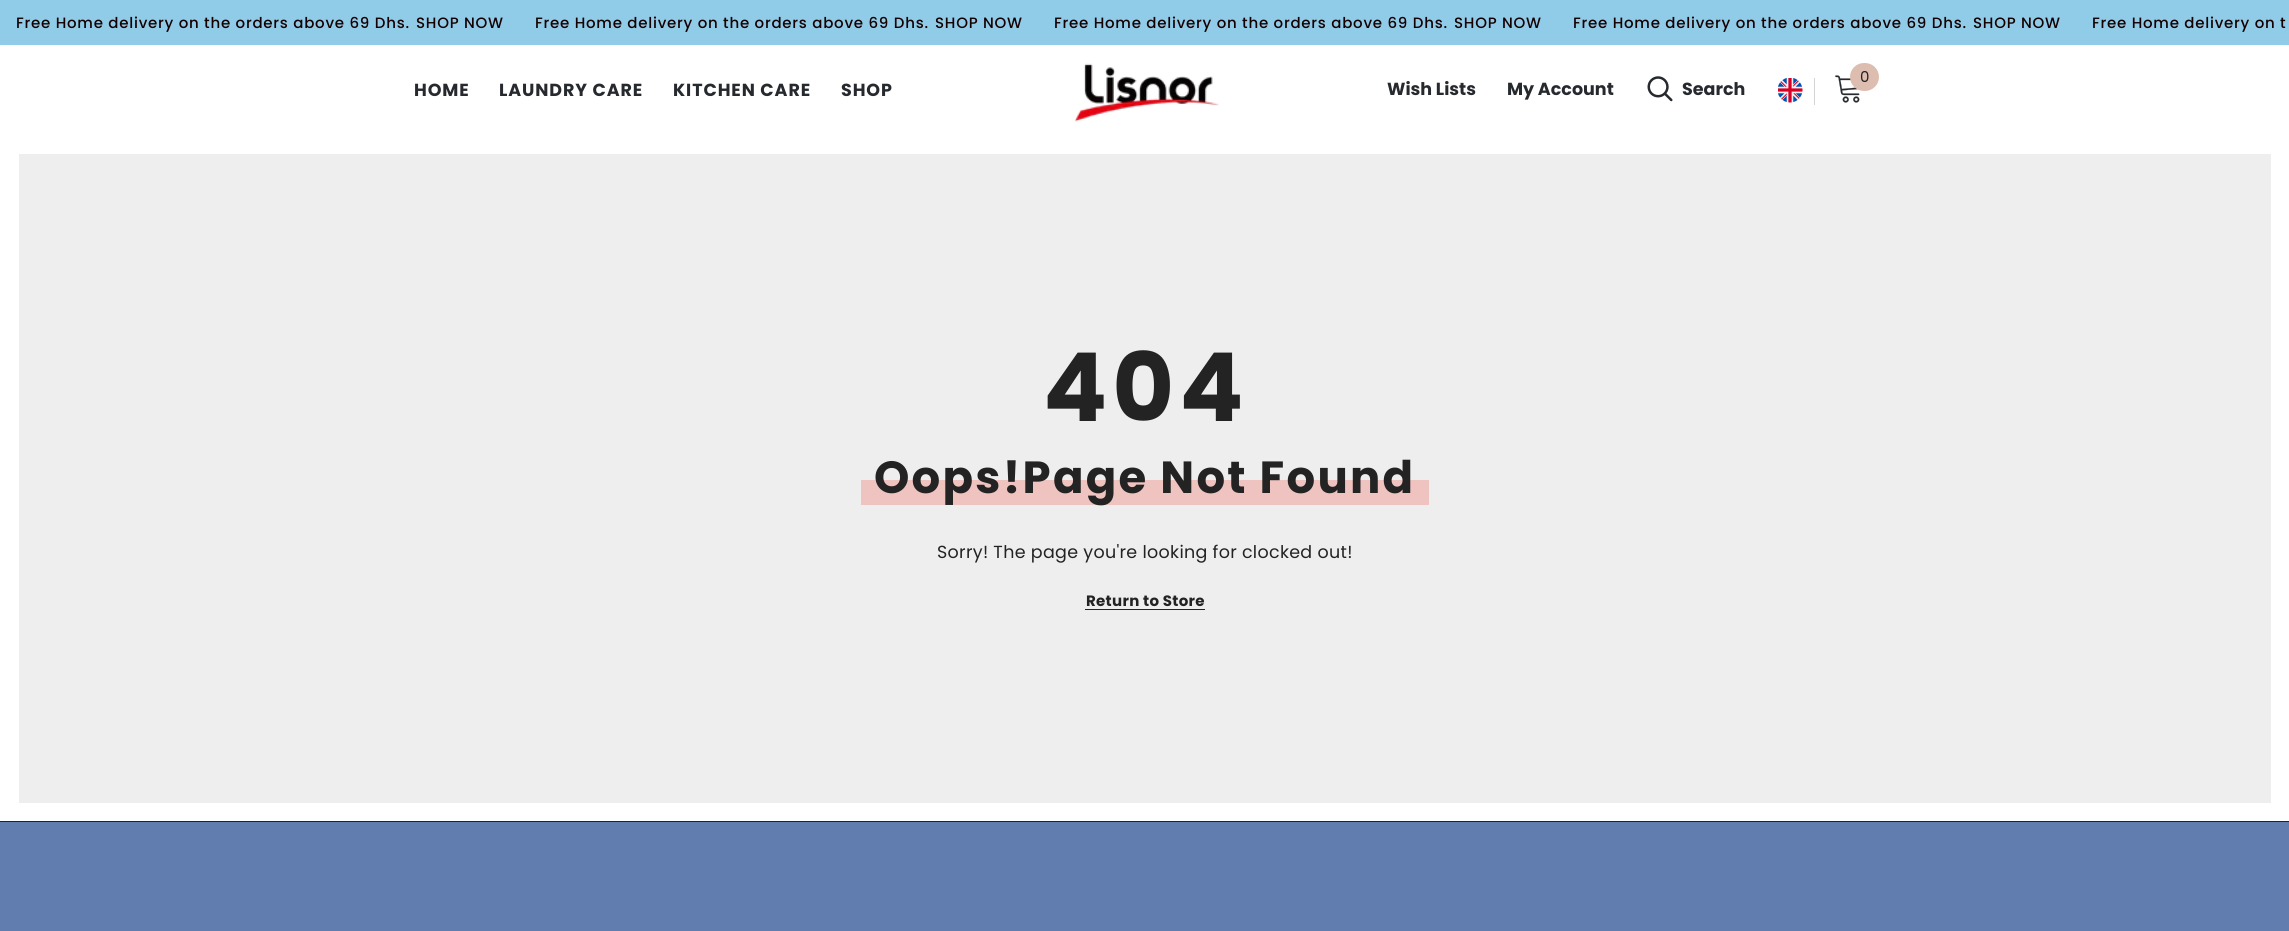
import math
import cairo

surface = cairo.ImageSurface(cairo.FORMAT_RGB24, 2289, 931)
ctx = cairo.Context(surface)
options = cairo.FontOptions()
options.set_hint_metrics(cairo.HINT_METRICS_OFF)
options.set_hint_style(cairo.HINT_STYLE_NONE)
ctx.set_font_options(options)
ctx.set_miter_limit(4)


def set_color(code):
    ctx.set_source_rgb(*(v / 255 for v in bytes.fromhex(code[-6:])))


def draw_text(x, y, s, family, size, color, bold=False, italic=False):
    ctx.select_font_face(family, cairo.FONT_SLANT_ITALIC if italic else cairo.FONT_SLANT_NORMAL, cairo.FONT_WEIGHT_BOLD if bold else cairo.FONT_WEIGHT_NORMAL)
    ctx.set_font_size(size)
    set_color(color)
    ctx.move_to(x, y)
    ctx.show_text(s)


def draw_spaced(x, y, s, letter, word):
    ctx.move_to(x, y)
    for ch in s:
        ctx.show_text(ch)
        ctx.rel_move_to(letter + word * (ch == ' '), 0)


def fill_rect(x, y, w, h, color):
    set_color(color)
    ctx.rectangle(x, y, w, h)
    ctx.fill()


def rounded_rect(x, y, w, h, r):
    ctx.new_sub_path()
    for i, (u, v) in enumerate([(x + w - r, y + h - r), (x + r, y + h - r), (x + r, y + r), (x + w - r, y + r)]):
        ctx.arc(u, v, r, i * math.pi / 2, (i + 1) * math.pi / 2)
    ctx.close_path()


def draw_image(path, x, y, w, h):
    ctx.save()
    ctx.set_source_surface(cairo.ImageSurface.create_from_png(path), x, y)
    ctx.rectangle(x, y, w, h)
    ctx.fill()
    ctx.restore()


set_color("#ffffff")
ctx.paint()
fill_rect(0, 0, 2289, 45, "#90cce8")
ctx.select_font_face("Poppins Medium")
ctx.set_font_size(15)
set_color("#150102")
draw_spaced(16, 28, "Free Home delivery on the orders above 69 Dhs.", 0.75, 0)
draw_spaced(416, 28, "SHOP NOW", 0.75, 0)
draw_spaced(535, 28, "Free Home delivery on the orders above 69 Dhs.", 0.75, 0)
draw_spaced(935, 28, "SHOP NOW", 0.75, 0)
draw_spaced(1054, 28, "Free Home delivery on the orders above 69 Dhs.", 0.75, 0)
draw_spaced(1454, 28, "SHOP NOW", 0.75, 0)
draw_spaced(1573, 28, "Free Home delivery on the orders above 69 Dhs.", 0.75, 0)
draw_spaced(1973, 28, "SHOP NOW", 0.75, 0)
draw_spaced(2092, 28, "Free Home delivery on t", 0.75, 0)
ctx.select_font_face("Poppins", cairo.FONT_SLANT_NORMAL, cairo.FONT_WEIGHT_BOLD)
ctx.set_font_size(17.5)
set_color("#26292d")
draw_spaced(414, 96, "HOME", 0.9, 0)
draw_spaced(499, 96, "LAUNDRY CARE", 0.9, 0)
draw_spaced(673, 96, "KITCHEN CARE", 0.9, 0)
draw_spaced(841, 96, "SHOP", 0.9, 0)
draw_image("assets/img1.png", 1075, 63, 144, 59)
draw_image("assets/img2.png", 1835, 75, 25, 28)
set_color("#ddbdb0")
rounded_rect(1850, 63, 29, 28, 14)
ctx.fill()
draw_text(1860, 82, "0", "Poppins", 15, "#232323")
draw_text(1387, 95, "Wish Lists", "Poppins", 17.5, "#26292d", bold=True)
draw_text(1507, 95, "My Account", "Poppins", 17.5, "#26292d", bold=True)
draw_image("assets/img3.png", 1647, 76, 26, 26)
draw_text(1682, 95, "Search", "Poppins", 17.5, "#26292d", bold=True)
draw_image("assets/img4.png", 1778, 78, 25, 25)
fill_rect(1814, 78, 1, 27, "#d4d4d5")
fill_rect(19, 154, 2252, 649, "#eeeeee")
ctx.set_font_size(95)
set_color("#232323")
draw_spaced(1043, 421, "404", 5, 0)
fill_rect(861, 480, 568, 25, "#efc3c0")
ctx.set_font_size(45)
set_color("#232323")
draw_spaced(874, 493, "Oops!Page Not Found", 2.25, 0)
ctx.select_font_face("Poppins")
ctx.set_font_size(17.5)
draw_spaced(937, 558, "Sorry! The page you're looking for clocked out!", 0.3, 0)
ctx.select_font_face("Poppins", cairo.FONT_SLANT_NORMAL, cairo.FONT_WEIGHT_BOLD)
ctx.set_font_size(15)
draw_spaced(1086, 606, "Return to Store", 0.3, 0)
fill_rect(1085, 609, 120, 1, "#232323")
fill_rect(0, 822, 2289, 109, "#617caf")
fill_rect(0, 821, 2289, 1, "#232323")
surface.write_to_png("output.png")
